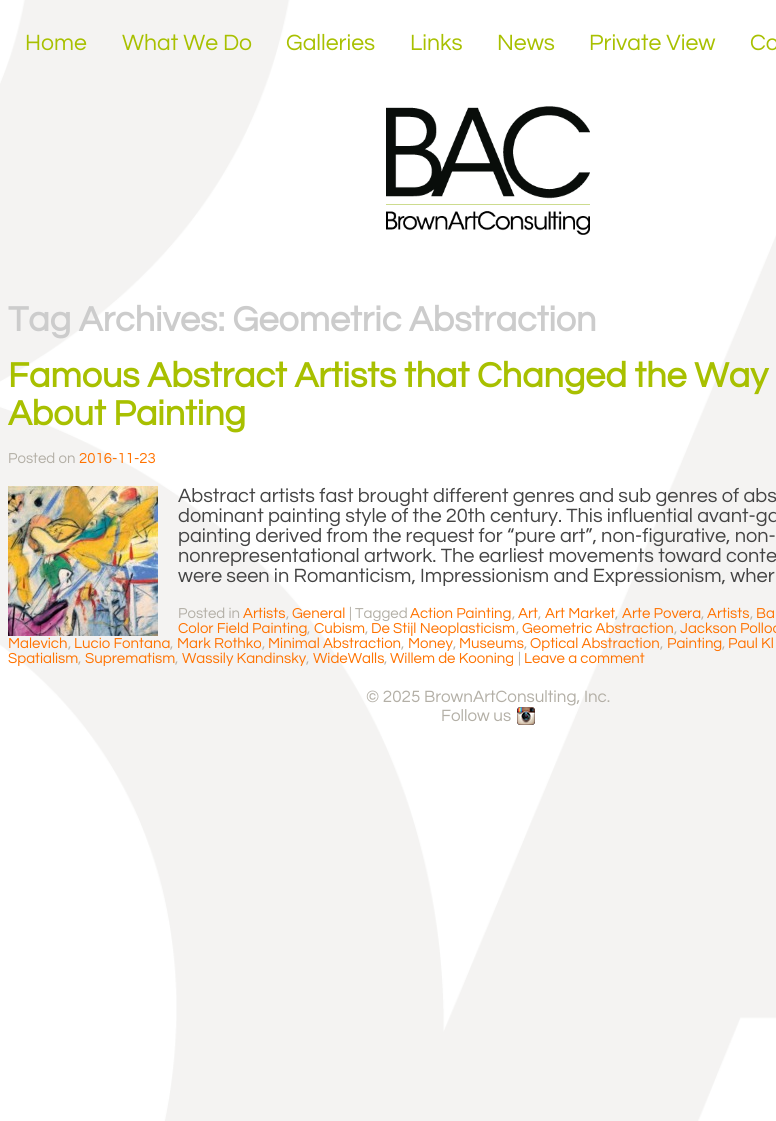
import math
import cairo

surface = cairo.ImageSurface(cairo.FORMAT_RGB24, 776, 1121)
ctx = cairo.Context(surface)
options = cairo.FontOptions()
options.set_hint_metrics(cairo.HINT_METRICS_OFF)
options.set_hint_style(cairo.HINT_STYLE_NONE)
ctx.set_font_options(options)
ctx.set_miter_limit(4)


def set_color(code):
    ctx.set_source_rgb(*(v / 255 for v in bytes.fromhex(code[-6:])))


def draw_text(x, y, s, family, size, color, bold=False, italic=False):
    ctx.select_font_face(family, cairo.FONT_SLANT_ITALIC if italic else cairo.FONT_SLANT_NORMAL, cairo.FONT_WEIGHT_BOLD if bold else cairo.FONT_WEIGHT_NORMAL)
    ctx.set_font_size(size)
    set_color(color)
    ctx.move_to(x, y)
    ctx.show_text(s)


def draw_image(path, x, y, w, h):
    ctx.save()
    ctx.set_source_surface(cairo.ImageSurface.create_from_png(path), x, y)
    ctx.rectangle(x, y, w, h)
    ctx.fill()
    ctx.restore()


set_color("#ffffff")
ctx.paint()
draw_image("assets/img1.png", 0, 0, 776, 1121)
draw_text(25, 50, "Home", "Questrial", 23, "#a8c000")
draw_text(122, 50, "What We Do", "Questrial", 23, "#a8c000")
draw_text(286, 50, "Galleries", "Questrial", 23, "#a8c000")
draw_text(410, 50, "Links", "Questrial", 23, "#a8c000")
draw_text(497, 50, "News", "Questrial", 23, "#a8c000")
draw_text(589, 50, "Private View", "Questrial", 23, "#a8c000")
draw_text(750, 50, "Co", "Questrial", 23, "#a8c000")
draw_image("assets/img2.png", 386, 106, 204, 129)
draw_text(8, 331, "Tag Archives: Geometric Abstraction", "Questrial", 36, "#cccccc", bold=True)
draw_text(8, 387, "Famous Abstract Artists that Changed the Way", "Questrial", 36, "#a8c000", bold=True)
draw_text(8, 425, "About Painting", "Questrial", 36, "#a8c000", bold=True)
draw_text(8, 463, "Posted on", "Questrial", 15, "#b3afa6")
draw_text(79, 463, "2016-11-23", "Questrial", 15, "#ff7200")
draw_image("assets/img3.png", 8, 486, 150, 150)
draw_text(178, 502, "Abstract artists fast brought different genres and sub genres of abs", "Questrial", 20, "#444444")
draw_text(178, 522, "dominant painting style of the 20th century. This influential avant-ga", "Questrial", 20, "#444444")
draw_text(178, 542, "painting derived from the request for “pure art”, non-figurative, non-", "Questrial", 20, "#444444")
draw_text(178, 562, "nonrepresentational artwork. The earliest movements toward conte", "Questrial", 20, "#444444")
draw_text(178, 582, "were seen in Romanticism, Impressionism and Expressionism, wher", "Questrial", 20, "#444444")
draw_text(178, 618, "Posted in", "Questrial", 15, "#b3afa6")
draw_text(243, 618, "Artists", "Questrial", 15, "#ff7200")
draw_text(286, 618, ",", "Questrial", 15, "#b3afa6")
draw_text(292, 618, "General", "Questrial", 15, "#ff7200")
draw_text(349, 618, "| Tagged", "Questrial", 15, "#b3afa6")
draw_text(410, 618, "Action Painting", "Questrial", 15, "#ff7200")
draw_text(512, 618, ",", "Questrial", 15, "#b3afa6")
draw_text(518, 618, "Art", "Questrial", 15, "#ff7200")
draw_text(538, 618, ",", "Questrial", 15, "#b3afa6")
draw_text(545, 618, "Art Market", "Questrial", 15, "#ff7200")
draw_text(615, 618, ",", "Questrial", 15, "#b3afa6")
draw_text(622, 618, "Arte Povera", "Questrial", 15, "#ff7200")
draw_text(701, 618, ",", "Questrial", 15, "#b3afa6")
draw_text(707, 618, "Artists", "Questrial", 15, "#ff7200")
draw_text(750, 618, ",", "Questrial", 15, "#b3afa6")
draw_text(756, 618, "Ba", "Questrial", 15, "#ff7200")
draw_text(178, 633, "Color Field Painting", "Questrial", 15, "#ff7200")
draw_text(307, 633, ",", "Questrial", 15, "#b3afa6")
draw_text(314, 633, "Cubism", "Questrial", 15, "#ff7200")
draw_text(365, 633, ",", "Questrial", 15, "#b3afa6")
draw_text(371, 633, "De Stijl Neoplasticism", "Questrial", 15, "#ff7200")
draw_text(516, 633, ",", "Questrial", 15, "#b3afa6")
draw_text(522, 633, "Geometric Abstraction", "Questrial", 15, "#ff7200")
draw_text(674, 633, ",", "Questrial", 15, "#b3afa6")
draw_text(680, 633, "Jackson Polloc", "Questrial", 15, "#ff7200")
draw_text(8, 648, "Malevich", "Questrial", 15, "#ff7200")
draw_text(68, 648, ",", "Questrial", 15, "#b3afa6")
draw_text(74, 648, "Lucio Fontana", "Questrial", 15, "#ff7200")
draw_text(170, 648, ",", "Questrial", 15, "#b3afa6")
draw_text(177, 648, "Mark Rothko", "Questrial", 15, "#ff7200")
draw_text(262, 648, ",", "Questrial", 15, "#b3afa6")
draw_text(268, 648, "Minimal Abstraction", "Questrial", 15, "#ff7200")
draw_text(401, 648, ",", "Questrial", 15, "#b3afa6")
draw_text(408, 648, "Money", "Questrial", 15, "#ff7200")
draw_text(453, 648, ",", "Questrial", 15, "#b3afa6")
draw_text(459, 648, "Museums", "Questrial", 15, "#ff7200")
draw_text(524, 648, ",", "Questrial", 15, "#b3afa6")
draw_text(530, 648, "Optical Abstraction", "Questrial", 15, "#ff7200")
draw_text(660, 648, ",", "Questrial", 15, "#b3afa6")
draw_text(667, 648, "Painting", "Questrial", 15, "#ff7200")
draw_text(722, 648, ",", "Questrial", 15, "#b3afa6")
draw_text(728, 648, "Paul Kl", "Questrial", 15, "#ff7200")
draw_text(8, 663, "Spatialism", "Questrial", 15, "#ff7200")
draw_text(78, 663, ",", "Questrial", 15, "#b3afa6")
draw_text(85, 663, "Suprematism", "Questrial", 15, "#ff7200")
draw_text(175, 663, ",", "Questrial", 15, "#b3afa6")
draw_text(182, 663, "Wassily Kandinsky", "Questrial", 15, "#ff7200")
draw_text(306, 663, ",", "Questrial", 15, "#b3afa6")
draw_text(313, 663, "WideWalls", "Questrial", 15, "#ff7200")
draw_text(384, 663, ",", "Questrial", 15, "#b3afa6")
draw_text(390, 663, "Willem de Kooning", "Questrial", 15, "#ff7200")
draw_text(518, 663, "|", "Questrial", 15, "#b3afa6")
draw_text(524, 663, "Leave a comment", "Questrial", 15, "#ff7200")
draw_text(366, 702, "© 2025 BrownArtConsulting, Inc.", "Questrial", 17, "#b3afa6")
draw_text(441, 721, "Follow us", "Questrial", 17, "#b3afa6")
draw_image("assets/img4.png", 517, 707, 18, 18)
surface.write_to_png("output.png")
